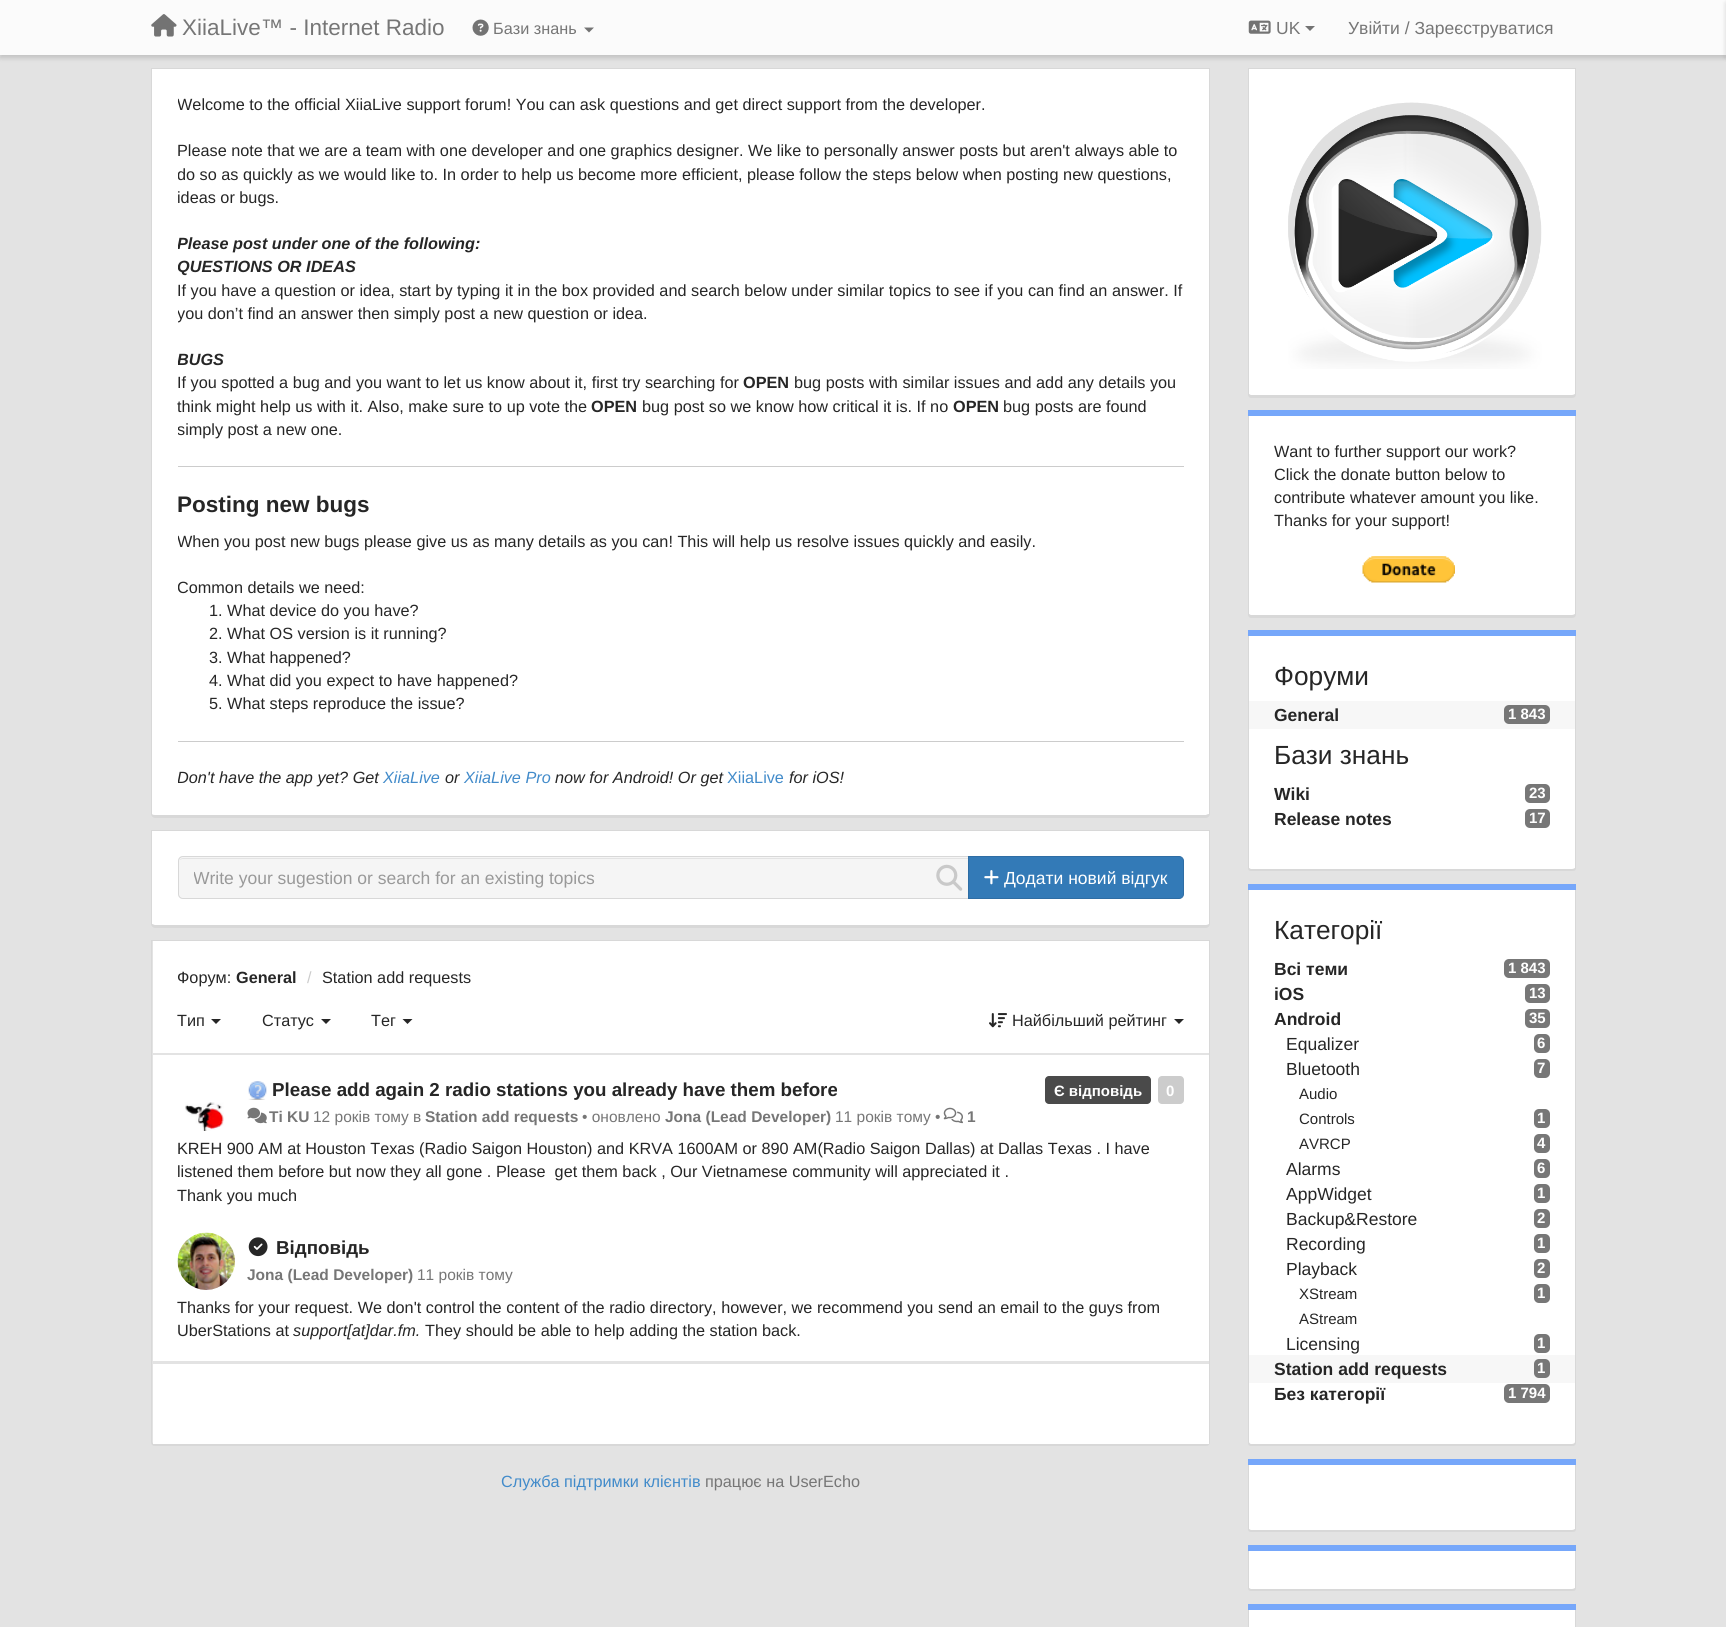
import math
import cairo

surface = cairo.ImageSurface(cairo.FORMAT_RGB24, 1726, 1627)
ctx = cairo.Context(surface)
options = cairo.FontOptions()
options.set_hint_metrics(cairo.HINT_METRICS_OFF)
options.set_hint_style(cairo.HINT_STYLE_NONE)
ctx.set_font_options(options)
ctx.set_miter_limit(4)


def set_color(code):
    ctx.set_source_rgb(*(v / 255 for v in bytes.fromhex(code[-6:])))


def draw_text(x, y, s, family, size, color, bold=False, italic=False):
    ctx.select_font_face(family, cairo.FONT_SLANT_ITALIC if italic else cairo.FONT_SLANT_NORMAL, cairo.FONT_WEIGHT_BOLD if bold else cairo.FONT_WEIGHT_NORMAL)
    ctx.set_font_size(size)
    set_color(color)
    ctx.move_to(x, y)
    ctx.show_text(s)


def fill_rect(x, y, w, h, color):
    set_color(color)
    ctx.rectangle(x, y, w, h)
    ctx.fill()


def rounded_rect(x, y, w, h, r):
    ctx.new_sub_path()
    for i, (u, v) in enumerate([(x + w - r, y + h - r), (x + r, y + h - r), (x + r, y + r), (x + w - r, y + r)]):
        ctx.arc(u, v, r, i * math.pi / 2, (i + 1) * math.pi / 2)
    ctx.close_path()


def draw_shadow(x, y, w, h, r, blur, alpha):
    ctx.push_group_with_content(cairo.CONTENT_ALPHA)
    ctx.set_operator(cairo.OPERATOR_SOURCE)
    for i in range(15, -16, -2):
        e = blur * i / 6
        if min(w, h) + 2 * e > 0:
            ctx.set_source_rgba(0, 0, 0, alpha * math.erfc((i - 1) / 8.5) / 2)
            rounded_rect(x - e, y - e, w + 2 * e, h + 2 * e, max(0, min(r + e + blur * .6, min(w, h) / 2 + e)))
            ctx.fill()
    ctx.mask(ctx.pop_group())


def draw_image(path, x, y, w, h):
    ctx.save()
    ctx.set_source_surface(cairo.ImageSurface.create_from_png(path), x, y)
    ctx.rectangle(x, y, w, h)
    ctx.fill()
    ctx.restore()


set_color("#e3e3e3")
ctx.paint()
set_color("#000000")
draw_shadow(0, 3, 1726, 55, 0, 2.5, 0.15)
fill_rect(0, 0, 1726, 55, "#fbfbfb")
draw_image("assets/img1.png", 151, 14, 26, 23)
draw_text(182, 35, "XiiaLive™ - Internet Radio", "Liberation Sans", 22.5, "#767676")
draw_image("assets/img2.png", 472, 19, 17, 17)
draw_text(493, 34, "Бази знань", "Liberation Sans", 16.25, "#767676")
set_color("#737373")
ctx.new_path()
ctx.move_to(584, 27.5)
ctx.line_to(594, 27.5)
ctx.line_to(589, 32.5)
ctx.close_path()
ctx.fill()
draw_image("assets/img3.png", 1248, 20, 23, 14)
draw_text(1276, 34, "UK", "Liberation Sans", 17.5, "#767676")
set_color("#737373")
ctx.new_path()
ctx.move_to(1305, 26)
ctx.line_to(1315, 26)
ctx.line_to(1310, 31)
ctx.close_path()
ctx.fill()
draw_text(1348, 34, "Увійти / Зареєструватися", "Liberation Sans", 17.5, "#767676")
set_color("#000000")
draw_shadow(1726, 3, 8, 55, 0, 2.5, 0.15)
fill_rect(151, 68, 1059, 1, "#d8d8d8")
set_color("#ffffff")
ctx.new_path()
ctx.move_to(152, 69)
ctx.line_to(1209, 69)
ctx.line_to(1209, 814)
ctx.line_to(1206, 815)
ctx.line_to(155, 815)
ctx.curve_to(154, 815, 152, 815, 152, 814)
ctx.close_path()
ctx.fill()
set_color("#d8d8d8")
ctx.set_fill_rule(cairo.FILL_RULE_EVEN_ODD)
ctx.new_path()
ctx.move_to(151, 69)
ctx.line_to(1210, 69)
ctx.line_to(1210, 814)
ctx.curve_to(1210, 816, 1208, 818, 1206, 818)
ctx.line_to(155, 818)
ctx.curve_to(153, 818, 151, 816, 151, 814)
ctx.close_path()
ctx.move_to(152, 69)
ctx.line_to(1209, 69)
ctx.line_to(1209, 814)
ctx.line_to(1206, 815)
ctx.line_to(155, 815)
ctx.curve_to(154, 815, 152, 815, 152, 814)
ctx.close_path()
ctx.fill()
ctx.save()
ctx.set_fill_rule(cairo.FILL_RULE_WINDING)
ctx.rectangle(178, 94, 1006, 696)
ctx.clip()
draw_text(177, 110, "Welcome to the official XiiaLive support forum! You can ask questions and get direct support from the developer.", "Liberation Sans", 16.25, "#262626")
ctx.restore()
draw_text(177, 156, "Please note that we are a team with one developer and one graphics designer. We like to personally answer posts but aren't always able to", "Liberation Sans", 16.25, "#262626")
ctx.save()
ctx.set_fill_rule(cairo.FILL_RULE_WINDING)
ctx.rectangle(178, 94, 1006, 696)
ctx.clip()
draw_text(177, 180, "do so as quickly as we would like to. In order to help us become more efficient, please follow the steps below when posting new questions,", "Liberation Sans", 16.25, "#262626")
ctx.restore()
draw_text(177, 203, "ideas or bugs.", "Liberation Sans", 16.25, "#262626")
ctx.save()
ctx.set_fill_rule(cairo.FILL_RULE_WINDING)
ctx.rectangle(178, 94, 1006, 696)
ctx.clip()
draw_text(177, 249, "Please post under one of the following:", "Liberation Sans", 16.25, "#262626", bold=True, italic=True)
draw_text(177, 272, "QUESTIONS OR IDEAS", "Liberation Sans", 16.25, "#262626", bold=True, italic=True)
ctx.restore()
draw_text(177, 296, "If you have a question or idea, start by typing it in the box provided and search below under similar topics to see if you can find an answer. If", "Liberation Sans", 16.25, "#262626")
ctx.save()
ctx.set_fill_rule(cairo.FILL_RULE_WINDING)
ctx.rectangle(178, 94, 1006, 696)
ctx.clip()
draw_text(177, 319, "you don’t find an answer then simply post a new question or idea.", "Liberation Sans", 16.25, "#262626")
draw_text(177, 365, "BUGS", "Liberation Sans", 16.25, "#262626", bold=True, italic=True)
ctx.restore()
draw_text(177, 388, "If you spotted a bug and you want to let us know about it, first try searching for", "Liberation Sans", 16.25, "#262626")
draw_text(743, 388, "OPEN", "Liberation Sans", 16.25, "#262626", bold=True)
draw_text(794, 388, "bug posts with similar issues and add any details you", "Liberation Sans", 16.25, "#262626")
draw_text(177, 412, "think might help us with it. Also, make sure to up vote the", "Liberation Sans", 16.25, "#262626")
draw_text(591, 412, "OPEN", "Liberation Sans", 16.25, "#262626", bold=True)
draw_text(642, 412, "bug post so we know how critical it is. If no", "Liberation Sans", 16.25, "#262626")
draw_text(953, 412, "OPEN", "Liberation Sans", 16.25, "#262626", bold=True)
draw_text(1003, 412, "bug posts are found", "Liberation Sans", 16.25, "#262626")
ctx.save()
ctx.set_fill_rule(cairo.FILL_RULE_WINDING)
ctx.rectangle(178, 94, 1006, 696)
ctx.clip()
draw_text(177, 435, "simply post a new one.", "Liberation Sans", 16.25, "#262626")
ctx.restore()
fill_rect(178, 466, 1006, 1, "#cccccc")
draw_text(177, 512, "Posting new bugs", "Liberation Sans", 22.5, "#262626", bold=True)
ctx.save()
ctx.set_fill_rule(cairo.FILL_RULE_WINDING)
ctx.rectangle(178, 94, 1006, 696)
ctx.clip()
draw_text(177, 547, "When you post new bugs please give us as many details as you can! This will help us resolve issues quickly and easily.", "Liberation Sans", 16.25, "#262626")
draw_text(177, 593, "Common details we need:", "Liberation Sans", 16.25, "#262626")
ctx.restore()
draw_text(209, 616, "1. What device do you have?", "Liberation Sans", 16.25, "#262626")
draw_text(209, 639, "2. What OS version is it running?", "Liberation Sans", 16.25, "#262626")
draw_text(209, 663, "3. What happened?", "Liberation Sans", 16.25, "#262626")
draw_text(209, 686, "4. What did you expect to have happened?", "Liberation Sans", 16.25, "#262626")
draw_text(209, 709, "5. What steps reproduce the issue?", "Liberation Sans", 16.25, "#262626")
fill_rect(178, 741, 1006, 1, "#cccccc")
ctx.save()
ctx.set_fill_rule(cairo.FILL_RULE_WINDING)
ctx.rectangle(178, 94, 1006, 696)
ctx.clip()
draw_text(177, 783, "Don't have the app yet? Get", "Liberation Sans", 16.25, "#262626", italic=True)
ctx.restore()
draw_text(383, 783, "XiiaLive", "Liberation Sans", 16.25, "#428bca", italic=True)
draw_text(445, 783, "or", "Liberation Sans", 16.25, "#262626", italic=True)
draw_text(464, 783, "XiiaLive Pro", "Liberation Sans", 16.25, "#428bca", italic=True)
draw_text(555, 783, "now for Android! Or get", "Liberation Sans", 16.25, "#262626", italic=True)
draw_text(727, 783, "XiiaLive", "Liberation Sans", 16.25, "#428bca")
draw_text(789, 783, "for iOS!", "Liberation Sans", 16.25, "#262626", italic=True)
fill_rect(151, 830, 1059, 1, "#d8d8d8")
set_color("#ffffff")
ctx.set_fill_rule(cairo.FILL_RULE_WINDING)
ctx.new_path()
ctx.move_to(152, 831)
ctx.line_to(1209, 831)
ctx.line_to(1209, 924)
ctx.curve_to(1209, 924, 1208, 925, 1206, 925)
ctx.line_to(155, 925)
ctx.curve_to(154, 925, 152, 924, 152, 924)
ctx.close_path()
ctx.fill()
set_color("#d8d8d8")
ctx.set_fill_rule(cairo.FILL_RULE_EVEN_ODD)
ctx.new_path()
ctx.move_to(151, 831)
ctx.line_to(1210, 831)
ctx.line_to(1210, 924)
ctx.curve_to(1210, 926, 1208, 928, 1206, 928)
ctx.line_to(155, 928)
ctx.curve_to(153, 928, 151, 926, 151, 924)
ctx.close_path()
ctx.move_to(152, 831)
ctx.line_to(1209, 831)
ctx.line_to(1209, 924)
ctx.curve_to(1209, 924, 1208, 925, 1206, 925)
ctx.line_to(155, 925)
ctx.curve_to(154, 925, 152, 924, 152, 924)
ctx.close_path()
ctx.fill()
set_color("#f5f5f5")
ctx.new_path()
ctx.move_to(183, 856)
ctx.line_to(969, 856)
ctx.line_to(969, 899)
ctx.line_to(183, 899)
ctx.curve_to(180, 899, 178, 897, 178, 894)
ctx.line_to(178, 861)
ctx.curve_to(178, 858, 180, 856, 183, 856)
ctx.close_path()
ctx.fill()
set_color("#e3e3e3")
ctx.set_fill_rule(cairo.FILL_RULE_WINDING)
ctx.new_path()
ctx.move_to(182, 859)
ctx.line_to(968, 859)
ctx.line_to(968, 858)
ctx.line_to(183, 858)
ctx.curve_to(182, 858, 180, 859, 180, 860)
ctx.close_path()
ctx.fill()
ctx.new_path()
ctx.move_to(183, 856.5)
ctx.line_to(968.5, 856.5)
ctx.line_to(968.5, 898.5)
ctx.line_to(183, 898.5)
ctx.curve_to(180.5, 898.5, 178.5, 896.5, 178.5, 894)
ctx.line_to(178.5, 861)
ctx.curve_to(178.5, 858.5, 180.5, 856.5, 183, 856.5)
ctx.close_path()
set_color("#d8d8d8")
ctx.set_line_width(1)
ctx.stroke()
ctx.save()
ctx.rectangle(194, 868, 736, 20)
ctx.clip()
draw_text(193, 884, "Write your sugestion or search for an existing topics", "Liberation Sans", 17.5, "#999999")
ctx.restore()
draw_image("assets/img4.png", 936, 864, 27, 27)
set_color("#337ab7")
ctx.new_path()
ctx.move_to(968.5, 856.5)
ctx.line_to(1179, 856.5)
ctx.curve_to(1181.5, 856.5, 1183.5, 858.5, 1183.5, 861)
ctx.line_to(1183.5, 894)
ctx.curve_to(1183.5, 896.5, 1181.5, 898.5, 1179, 898.5)
ctx.line_to(968.5, 898.5)
ctx.close_path()
ctx.fill_preserve()
set_color("#2e6da4")
ctx.stroke()
draw_image("assets/img5.png", 984, 870, 15, 15)
draw_text(1004, 884, "Додати новий відгук", "Liberation Sans", 17.5, "#ffffff")
fill_rect(151, 940, 1059, 1, "#d8d8d8")
ctx.set_fill_rule(cairo.FILL_RULE_EVEN_ODD)
ctx.new_path()
ctx.move_to(151, 941)
ctx.line_to(1210, 941)
ctx.line_to(1210, 1442)
ctx.curve_to(1210, 1445, 1208, 1446, 1206, 1446)
ctx.line_to(155, 1446)
ctx.curve_to(153, 1446, 151, 1445, 151, 1442)
ctx.close_path()
ctx.move_to(152, 941)
ctx.line_to(1209, 941)
ctx.line_to(1209, 1442)
ctx.curve_to(1209, 1443, 1208, 1444, 1206, 1444)
ctx.line_to(155, 1444)
ctx.curve_to(154, 1444, 152, 1443, 152, 1442)
ctx.close_path()
ctx.fill()
fill_rect(153, 941, 1056, 112, "#ffffff")
draw_text(177, 983, "Форум:", "Liberation Sans", 16.25, "#262626")
draw_text(236, 983, "General", "Liberation Sans", 16.25, "#262626", bold=True)
draw_text(307, 983, "/", "Liberation Sans", 16.25, "#cccccc")
draw_text(322, 983, "Station add requests", "Liberation Sans", 16.25, "#262626")
draw_text(177, 1026, "Тип", "Liberation Sans", 16.25, "#262626")
ctx.set_fill_rule(cairo.FILL_RULE_WINDING)
ctx.new_path()
ctx.move_to(211, 1019)
ctx.line_to(221, 1019)
ctx.line_to(216, 1024)
ctx.close_path()
ctx.fill()
draw_text(262, 1026, "Статус", "Liberation Sans", 16.25, "#262626")
ctx.new_path()
ctx.move_to(321, 1019)
ctx.line_to(331, 1019)
ctx.line_to(326, 1024)
ctx.close_path()
ctx.fill()
draw_text(371, 1026, "Тег", "Liberation Sans", 16.25, "#262626")
ctx.new_path()
ctx.move_to(402.5, 1019)
ctx.line_to(412.5, 1019)
ctx.line_to(407.5, 1024)
ctx.close_path()
ctx.fill()
draw_image("assets/img6.png", 989, 1013, 18, 15)
draw_text(1012, 1026, "Найбільший рейтинг", "Liberation Sans", 16.25, "#262626")
ctx.new_path()
ctx.move_to(1174, 1019)
ctx.line_to(1184, 1019)
ctx.line_to(1179, 1024)
ctx.close_path()
ctx.fill()
fill_rect(153, 1055, 1056, 306, "#ffffff")
draw_image("assets/img7.png", 248, 1081, 19, 19)
draw_text(272, 1096, "Please add again 2 radio stations you already have them before", "Liberation Sans", 18.75, "#262626", bold=True)
set_color("#4a4a4a")
rounded_rect(1045, 1076, 106, 28, 4)
ctx.fill()
draw_text(1054, 1096, "Є відповідь", "Liberation Sans", 15, "#ffffff", bold=True)
set_color("#cccccc")
rounded_rect(1158, 1076, 26, 28, 4)
ctx.fill()
draw_text(1166, 1096, "0", "Liberation Sans", 15, "#ffffff", bold=True)
draw_image("assets/img8.png", 185, 1102, 39, 29)
draw_image("assets/img9.png", 247, 1107, 20, 17)
draw_text(269, 1122, "Ti KU", "Liberation Sans", 15.5, "#767676", bold=True)
draw_text(313, 1122, "12 років тому в", "Liberation Sans", 15.5, "#767676")
draw_text(425, 1122, "Station add requests", "Liberation Sans", 15.5, "#767676", bold=True)
draw_text(582, 1122, "• оновлено", "Liberation Sans", 15.5, "#767676")
draw_text(665, 1122, "Jona (Lead Developer)", "Liberation Sans", 15.5, "#767676", bold=True)
draw_text(835, 1122, "11 років тому •", "Liberation Sans", 15.5, "#767676")
draw_image("assets/img10.png", 943, 1107, 20, 17)
draw_text(967, 1122, "1", "Liberation Sans", 15.5, "#767676", bold=True)
draw_text(177, 1154, "KREH 900 AM at Houston Texas (Radio Saigon Houston) and KRVA 1600AM or 890 AM(Radio Saigon Dallas) at Dallas Texas . I have", "Liberation Sans", 16.25, "#262626")
draw_text(177, 1177, "listened them before but now they all gone . Please  get them back , Our Vietnamese community will appreciated it .", "Liberation Sans", 16.25, "#262626")
draw_text(177, 1201, "Thank you much", "Liberation Sans", 16.25, "#262626")
draw_image("assets/img11.png", 177, 1232, 58, 58)
draw_image("assets/img12.png", 248, 1237, 20, 20)
draw_text(276, 1254, "Відповідь", "Liberation Sans", 18.75, "#262626", bold=True)
draw_text(247, 1280, "Jona (Lead Developer)", "Liberation Sans", 15.5, "#767676", bold=True)
draw_text(417, 1280, "11 років тому", "Liberation Sans", 15.5, "#767676")
draw_text(177, 1313, "Thanks for your request. We don't control the content of the radio directory, however, we recommend you send an email to the guys from", "Liberation Sans", 16.25, "#262626")
draw_text(177, 1336, "UberStations at", "Liberation Sans", 16.25, "#262626")
draw_text(293, 1336, "support[at]dar.fm.", "Liberation Sans", 16.25, "#262626", italic=True)
draw_text(425, 1336, "They should be able to help adding the station back.", "Liberation Sans", 16.25, "#262626")
fill_rect(153, 1364, 1056, 80, "#ffffff")
draw_text(501, 1487, "Служба підтримки клієнтів", "Liberation Sans", 16.25, "#428bca")
draw_text(705, 1487, "працює на UserEcho", "Liberation Sans", 16.25, "#767676")
fill_rect(1248, 68, 328, 1, "#d8d8d8")
set_color("#ffffff")
ctx.new_path()
ctx.move_to(1249, 69)
ctx.line_to(1575, 69)
ctx.line_to(1575, 394)
ctx.curve_to(1575, 394, 1574, 395, 1572, 395)
ctx.line_to(1251, 395)
ctx.curve_to(1250, 395, 1249, 394, 1249, 394)
ctx.close_path()
ctx.fill()
set_color("#d8d8d8")
ctx.set_fill_rule(cairo.FILL_RULE_EVEN_ODD)
ctx.new_path()
ctx.move_to(1248, 69)
ctx.line_to(1576, 69)
ctx.line_to(1576, 394)
ctx.curve_to(1576, 396, 1575, 398, 1572, 398)
ctx.line_to(1251, 398)
ctx.curve_to(1249, 398, 1248, 396, 1248, 394)
ctx.close_path()
ctx.move_to(1249, 69)
ctx.line_to(1575, 69)
ctx.line_to(1575, 394)
ctx.curve_to(1575, 394, 1574, 395, 1572, 395)
ctx.line_to(1251, 395)
ctx.curve_to(1250, 395, 1249, 394, 1249, 394)
ctx.close_path()
ctx.fill()
draw_image("assets/img13.png", 1288, 102, 254, 267)
fill_rect(1248, 410, 328, 6, "#76a7fa")
set_color("#ffffff")
ctx.set_fill_rule(cairo.FILL_RULE_WINDING)
ctx.new_path()
ctx.move_to(1249, 416)
ctx.line_to(1575, 416)
ctx.line_to(1575, 614)
ctx.curve_to(1575, 614, 1574, 615, 1572, 615)
ctx.line_to(1251, 615)
ctx.curve_to(1250, 615, 1249, 614, 1249, 614)
ctx.close_path()
ctx.fill()
set_color("#d8d8d8")
ctx.set_fill_rule(cairo.FILL_RULE_EVEN_ODD)
ctx.new_path()
ctx.move_to(1248, 416)
ctx.line_to(1576, 416)
ctx.line_to(1576, 614)
ctx.curve_to(1576, 616, 1575, 618, 1572, 618)
ctx.line_to(1251, 618)
ctx.curve_to(1249, 618, 1248, 616, 1248, 614)
ctx.close_path()
ctx.move_to(1249, 416)
ctx.line_to(1575, 416)
ctx.line_to(1575, 614)
ctx.curve_to(1575, 614, 1574, 615, 1572, 615)
ctx.line_to(1251, 615)
ctx.curve_to(1250, 615, 1249, 614, 1249, 614)
ctx.close_path()
ctx.fill()
draw_text(1274, 457, "Want to further support our work?", "Liberation Sans", 16.25, "#262626")
draw_text(1274, 480, "Click the donate button below to", "Liberation Sans", 16.25, "#262626")
draw_text(1274, 503, "contribute whatever amount you like.", "Liberation Sans", 16.25, "#262626")
draw_text(1274, 526, "Thanks for your support!", "Liberation Sans", 16.25, "#262626")
draw_image("assets/img14.png", 1362, 556, 93, 27)
fill_rect(1248, 630, 328, 6, "#76a7fa")
set_color("#ffffff")
ctx.set_fill_rule(cairo.FILL_RULE_WINDING)
ctx.new_path()
ctx.move_to(1249, 636)
ctx.line_to(1575, 636)
ctx.line_to(1575, 868)
ctx.curve_to(1575, 868, 1574, 869, 1572, 869)
ctx.line_to(1251, 869)
ctx.curve_to(1250, 869, 1249, 868, 1249, 868)
ctx.close_path()
ctx.fill()
set_color("#d8d8d8")
ctx.set_fill_rule(cairo.FILL_RULE_EVEN_ODD)
ctx.new_path()
ctx.move_to(1248, 636)
ctx.line_to(1576, 636)
ctx.line_to(1576, 868)
ctx.curve_to(1576, 870, 1575, 871, 1572, 871)
ctx.line_to(1251, 871)
ctx.curve_to(1249, 871, 1248, 870, 1248, 868)
ctx.close_path()
ctx.move_to(1249, 636)
ctx.line_to(1575, 636)
ctx.line_to(1575, 868)
ctx.curve_to(1575, 868, 1574, 869, 1572, 869)
ctx.line_to(1251, 869)
ctx.curve_to(1250, 869, 1249, 868, 1249, 868)
ctx.close_path()
ctx.fill()
draw_text(1274, 685, "Форуми", "Liberation Sans", 26.25, "#262626")
fill_rect(1249, 701, 326, 28, "#f7f7f7")
draw_text(1274, 721, "General", "Liberation Sans", 17.5, "#262626", bold=True)
set_color("#777777")
rounded_rect(1504, 705, 46, 19, 5)
ctx.fill()
draw_text(1508, 719, "1 843", "Liberation Sans", 15, "#ffffff", bold=True)
draw_text(1274, 764, "Бази знань", "Liberation Sans", 26.25, "#262626")
draw_text(1274, 800, "Wiki", "Liberation Sans", 17.5, "#262626", bold=True)
set_color("#777777")
rounded_rect(1525, 784, 25, 19, 5)
ctx.fill()
draw_text(1529, 798, "23", "Liberation Sans", 15, "#ffffff", bold=True)
draw_text(1274, 825, "Release notes", "Liberation Sans", 17.5, "#262626", bold=True)
set_color("#777777")
rounded_rect(1525, 809, 25, 19, 5)
ctx.fill()
draw_text(1529, 823, "17", "Liberation Sans", 15, "#ffffff", bold=True)
fill_rect(1248, 884, 328, 6, "#76a7fa")
set_color("#ffffff")
ctx.set_fill_rule(cairo.FILL_RULE_WINDING)
ctx.new_path()
ctx.move_to(1249, 890)
ctx.line_to(1575, 890)
ctx.line_to(1575, 1442)
ctx.curve_to(1575, 1443, 1574, 1444, 1572, 1444)
ctx.line_to(1251, 1444)
ctx.curve_to(1250, 1444, 1249, 1443, 1249, 1442)
ctx.close_path()
ctx.fill()
set_color("#d8d8d8")
ctx.set_fill_rule(cairo.FILL_RULE_EVEN_ODD)
ctx.new_path()
ctx.move_to(1248, 890)
ctx.line_to(1576, 890)
ctx.line_to(1576, 1442)
ctx.curve_to(1576, 1445, 1575, 1446, 1572, 1446)
ctx.line_to(1251, 1446)
ctx.curve_to(1249, 1446, 1248, 1445, 1248, 1442)
ctx.close_path()
ctx.move_to(1249, 890)
ctx.line_to(1575, 890)
ctx.line_to(1575, 1442)
ctx.curve_to(1575, 1443, 1574, 1444, 1572, 1444)
ctx.line_to(1251, 1444)
ctx.curve_to(1250, 1444, 1249, 1443, 1249, 1442)
ctx.close_path()
ctx.fill()
draw_text(1274, 939, "Категорії", "Liberation Sans", 26.25, "#262626")
draw_text(1274, 975, "Всі теми", "Liberation Sans", 17.5, "#262626", bold=True)
set_color("#777777")
rounded_rect(1504, 959, 46, 19, 5)
ctx.fill()
draw_text(1508, 973, "1 843", "Liberation Sans", 15, "#ffffff", bold=True)
draw_text(1274, 1000, "iOS", "Liberation Sans", 17.5, "#262626", bold=True)
set_color("#777777")
rounded_rect(1525, 984, 25, 19, 5)
ctx.fill()
draw_text(1529, 998, "13", "Liberation Sans", 15, "#ffffff", bold=True)
draw_text(1274, 1025, "Android", "Liberation Sans", 17.5, "#262626", bold=True)
set_color("#777777")
rounded_rect(1525, 1009, 25, 19, 5)
ctx.fill()
draw_text(1529, 1023, "35", "Liberation Sans", 15, "#ffffff", bold=True)
draw_text(1286, 1050, "Equalizer", "Liberation Sans", 17.5, "#262626")
set_color("#777777")
rounded_rect(1534, 1034, 16, 19, 5)
ctx.fill()
draw_text(1537, 1048, "6", "Liberation Sans", 15, "#ffffff", bold=True)
draw_text(1286, 1075, "Bluetooth", "Liberation Sans", 17.5, "#262626")
set_color("#777777")
rounded_rect(1534, 1059, 16, 19, 5)
ctx.fill()
draw_text(1537, 1073, "7", "Liberation Sans", 15, "#ffffff", bold=True)
draw_text(1299, 1099, "Audio", "Liberation Sans", 15, "#262626")
draw_text(1299, 1124, "Controls", "Liberation Sans", 15, "#262626")
set_color("#777777")
rounded_rect(1534, 1109, 16, 19, 5)
ctx.fill()
draw_text(1537, 1123, "1", "Liberation Sans", 15, "#ffffff", bold=True)
draw_text(1299, 1149, "AVRCP", "Liberation Sans", 15, "#262626")
set_color("#777777")
rounded_rect(1534, 1134, 16, 19, 5)
ctx.fill()
draw_text(1537, 1148, "4", "Liberation Sans", 15, "#ffffff", bold=True)
draw_text(1286, 1175, "Alarms", "Liberation Sans", 17.5, "#262626")
set_color("#777777")
rounded_rect(1534, 1159, 16, 19, 5)
ctx.fill()
draw_text(1537, 1173, "6", "Liberation Sans", 15, "#ffffff", bold=True)
draw_text(1286, 1200, "AppWidget", "Liberation Sans", 17.5, "#262626")
set_color("#777777")
rounded_rect(1534, 1184, 16, 19, 5)
ctx.fill()
draw_text(1537, 1198, "1", "Liberation Sans", 15, "#ffffff", bold=True)
draw_text(1286, 1225, "Backup&Restore", "Liberation Sans", 17.5, "#262626")
set_color("#777777")
rounded_rect(1534, 1209, 16, 19, 5)
ctx.fill()
draw_text(1537, 1223, "2", "Liberation Sans", 15, "#ffffff", bold=True)
draw_text(1286, 1250, "Recording", "Liberation Sans", 17.5, "#262626")
set_color("#777777")
rounded_rect(1534, 1234, 16, 19, 5)
ctx.fill()
draw_text(1537, 1248, "1", "Liberation Sans", 15, "#ffffff", bold=True)
draw_text(1286, 1275, "Playback", "Liberation Sans", 17.5, "#262626")
set_color("#777777")
rounded_rect(1534, 1259, 16, 19, 5)
ctx.fill()
draw_text(1537, 1273, "2", "Liberation Sans", 15, "#ffffff", bold=True)
draw_text(1299, 1299, "XStream", "Liberation Sans", 15, "#262626")
set_color("#777777")
rounded_rect(1534, 1284, 16, 19, 5)
ctx.fill()
draw_text(1537, 1298, "1", "Liberation Sans", 15, "#ffffff", bold=True)
draw_text(1299, 1324, "AStream", "Liberation Sans", 15, "#262626")
draw_text(1286, 1350, "Licensing", "Liberation Sans", 17.5, "#262626")
set_color("#777777")
rounded_rect(1534, 1334, 16, 19, 5)
ctx.fill()
draw_text(1537, 1348, "1", "Liberation Sans", 15, "#ffffff", bold=True)
fill_rect(1249, 1355, 326, 28, "#f7f7f7")
draw_text(1274, 1375, "Station add requests", "Liberation Sans", 17.5, "#262626", bold=True)
set_color("#777777")
rounded_rect(1534, 1359, 16, 19, 5)
ctx.fill()
draw_text(1537, 1373, "1", "Liberation Sans", 15, "#ffffff", bold=True)
draw_text(1274, 1400, "Без категорії", "Liberation Sans", 17.5, "#262626", bold=True)
set_color("#777777")
rounded_rect(1504, 1384, 46, 19, 5)
ctx.fill()
draw_text(1508, 1398, "1 794", "Liberation Sans", 15, "#ffffff", bold=True)
fill_rect(1248, 1459, 328, 6, "#76a7fa")
set_color("#ffffff")
ctx.set_fill_rule(cairo.FILL_RULE_WINDING)
ctx.new_path()
ctx.move_to(1249, 1465)
ctx.line_to(1575, 1465)
ctx.line_to(1575, 1529)
ctx.curve_to(1575, 1529, 1574, 1530, 1572, 1530)
ctx.line_to(1251, 1530)
ctx.curve_to(1250, 1530, 1249, 1529, 1249, 1529)
ctx.close_path()
ctx.fill()
set_color("#d8d8d8")
ctx.set_fill_rule(cairo.FILL_RULE_EVEN_ODD)
ctx.new_path()
ctx.move_to(1248, 1465)
ctx.line_to(1576, 1465)
ctx.line_to(1576, 1529)
ctx.curve_to(1576, 1531, 1575, 1532, 1572, 1532)
ctx.line_to(1251, 1532)
ctx.curve_to(1249, 1532, 1248, 1531, 1248, 1529)
ctx.close_path()
ctx.move_to(1249, 1465)
ctx.line_to(1575, 1465)
ctx.line_to(1575, 1529)
ctx.curve_to(1575, 1529, 1574, 1530, 1572, 1530)
ctx.line_to(1251, 1530)
ctx.curve_to(1250, 1530, 1249, 1529, 1249, 1529)
ctx.close_path()
ctx.fill()
fill_rect(1248, 1545, 328, 6, "#76a7fa")
set_color("#ffffff")
ctx.set_fill_rule(cairo.FILL_RULE_WINDING)
ctx.new_path()
ctx.move_to(1249, 1551)
ctx.line_to(1575, 1551)
ctx.line_to(1575, 1588)
ctx.curve_to(1575, 1588, 1574, 1589, 1572, 1589)
ctx.line_to(1251, 1589)
ctx.curve_to(1250, 1589, 1249, 1588, 1249, 1588)
ctx.close_path()
ctx.fill()
set_color("#d8d8d8")
ctx.set_fill_rule(cairo.FILL_RULE_EVEN_ODD)
ctx.new_path()
ctx.move_to(1248, 1551)
ctx.line_to(1576, 1551)
ctx.line_to(1576, 1588)
ctx.curve_to(1576, 1590, 1575, 1591, 1572, 1591)
ctx.line_to(1251, 1591)
ctx.curve_to(1249, 1591, 1248, 1590, 1248, 1588)
ctx.close_path()
ctx.move_to(1249, 1551)
ctx.line_to(1575, 1551)
ctx.line_to(1575, 1588)
ctx.curve_to(1575, 1588, 1574, 1589, 1572, 1589)
ctx.line_to(1251, 1589)
ctx.curve_to(1250, 1589, 1249, 1588, 1249, 1588)
ctx.close_path()
ctx.fill()
fill_rect(1248, 1604, 328, 6, "#76a7fa")
set_color("#ffffff")
ctx.set_fill_rule(cairo.FILL_RULE_WINDING)
ctx.new_path()
ctx.move_to(1249, 1610)
ctx.line_to(1575, 1610)
ctx.line_to(1575, 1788)
ctx.curve_to(1575, 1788, 1574, 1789, 1572, 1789)
ctx.line_to(1251, 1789)
ctx.curve_to(1250, 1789, 1249, 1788, 1249, 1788)
ctx.close_path()
ctx.fill()
set_color("#d8d8d8")
ctx.set_fill_rule(cairo.FILL_RULE_EVEN_ODD)
ctx.new_path()
ctx.move_to(1248, 1610)
ctx.line_to(1576, 1610)
ctx.line_to(1576, 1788)
ctx.curve_to(1576, 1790, 1575, 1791, 1572, 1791)
ctx.line_to(1251, 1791)
ctx.curve_to(1249, 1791, 1248, 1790, 1248, 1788)
ctx.close_path()
ctx.move_to(1249, 1610)
ctx.line_to(1575, 1610)
ctx.line_to(1575, 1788)
ctx.curve_to(1575, 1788, 1574, 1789, 1572, 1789)
ctx.line_to(1251, 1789)
ctx.curve_to(1250, 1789, 1249, 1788, 1249, 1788)
ctx.close_path()
ctx.fill()
surface.write_to_png("output.png")
